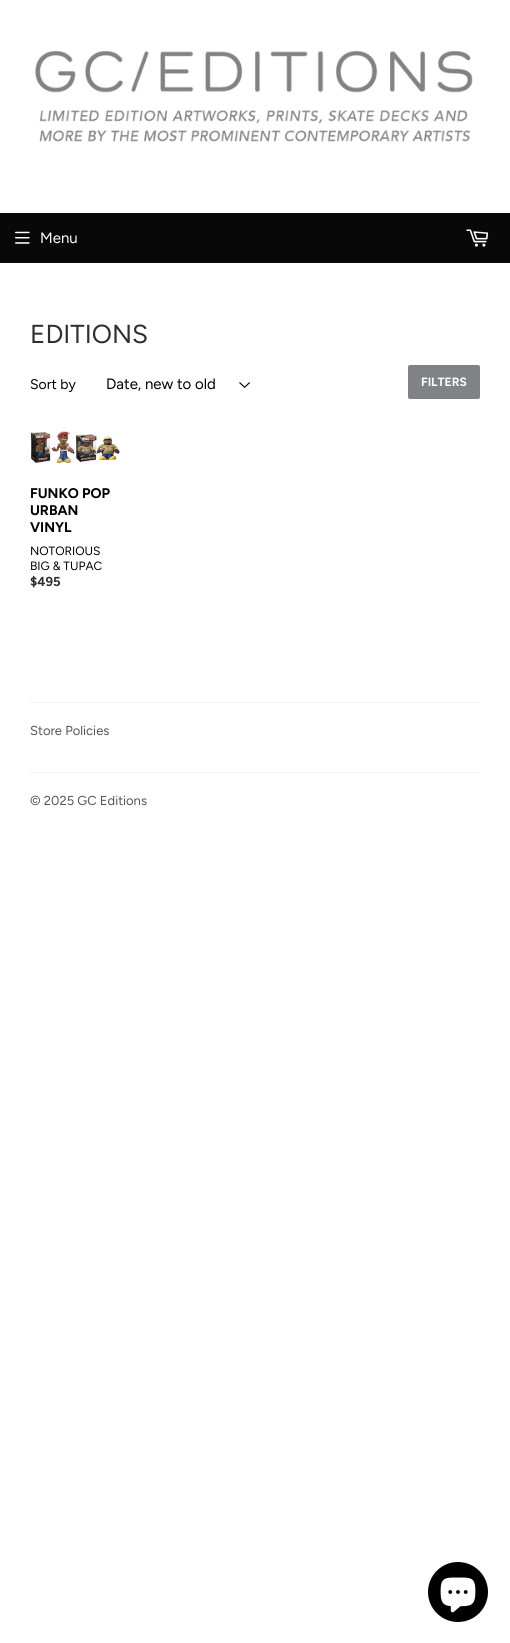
import math
import cairo

surface = cairo.ImageSurface(cairo.FORMAT_RGB24, 510, 1643)
ctx = cairo.Context(surface)
options = cairo.FontOptions()
options.set_hint_metrics(cairo.HINT_METRICS_OFF)
options.set_hint_style(cairo.HINT_STYLE_NONE)
ctx.set_font_options(options)
ctx.set_miter_limit(4)


def set_color(code):
    ctx.set_source_rgb(*(v / 255 for v in bytes.fromhex(code[-6:])))


def draw_text(x, y, s, family, size, color, bold=False, italic=False):
    ctx.select_font_face(family, cairo.FONT_SLANT_ITALIC if italic else cairo.FONT_SLANT_NORMAL, cairo.FONT_WEIGHT_BOLD if bold else cairo.FONT_WEIGHT_NORMAL)
    ctx.set_font_size(size)
    set_color(color)
    ctx.move_to(x, y)
    ctx.show_text(s)


def fill_rect(x, y, w, h, color):
    set_color(color)
    ctx.rectangle(x, y, w, h)
    ctx.fill()


def rounded_rect(x, y, w, h, r):
    ctx.new_sub_path()
    for i, (u, v) in enumerate([(x + w - r, y + h - r), (x + r, y + h - r), (x + r, y + r), (x + w - r, y + r)]):
        ctx.arc(u, v, r, i * math.pi / 2, (i + 1) * math.pi / 2)
    ctx.close_path()


def draw_image(path, x, y, w, h):
    ctx.save()
    ctx.set_source_surface(cairo.ImageSurface.create_from_png(path), x, y)
    ctx.rectangle(x, y, w, h)
    ctx.fill()
    ctx.restore()


set_color("#ffffff")
ctx.paint()
draw_image("assets/img1.png", 35, 50, 438, 92)
fill_rect(0, 213, 510, 50, "#080808")
draw_image("assets/img2.png", 15, 231, 15, 13)
draw_text(40, 243, "Menu", "Figtree", 15, "#ffffff")
draw_image("assets/img3.png", 466, 229, 23, 18)
draw_text(30, 343, "EDITIONS", "Figtree", 26, "#2f2f2f")
draw_text(30, 389, "Sort by", "Figtree", 14, "#000000")
draw_image("assets/img4.png", 239, 382, 11, 6)
draw_text(106, 389, "Date, new to old", "Figtree", 15, "#000000")
set_color("#808285")
rounded_rect(408, 365, 72, 34, 2)
ctx.fill()
draw_text(421, 386, "FILTERS", "Figtree", 12, "#ffffff", bold=True)
draw_image("assets/img5.png", 30, 431, 90, 33)
draw_text(30, 498, "FUNKO POP", "Figtree", 14, "#000000", bold=True)
draw_text(30, 515, "URBAN", "Figtree", 14, "#000000", bold=True)
draw_text(30, 532, "VINYL", "Figtree", 14, "#000000", bold=True)
draw_text(30, 555, "NOTORIOUS", "Figtree", 12, "#000000")
draw_text(30, 570, "BIG & TUPAC", "Figtree", 12, "#000000")
draw_text(30, 586, "$495", "Figtree", 13, "#2f2f2f", bold=True)
fill_rect(30, 702, 450, 1, "#f2f2f2")
draw_text(30, 735, "Store Policies", "Figtree", 13, "#545454")
fill_rect(30, 772, 450, 1, "#f2f2f2")
draw_text(30, 805, "© 2025 GC Editions", "Figtree", 13, "#545454")
set_color("#000000")
ctx.new_path()
ctx.arc(458, 1592, 30, 0, 2 * math.pi)
ctx.fill()
draw_image("assets/img6.png", 440, 1577, 36, 36)
surface.write_to_png("output.png")
